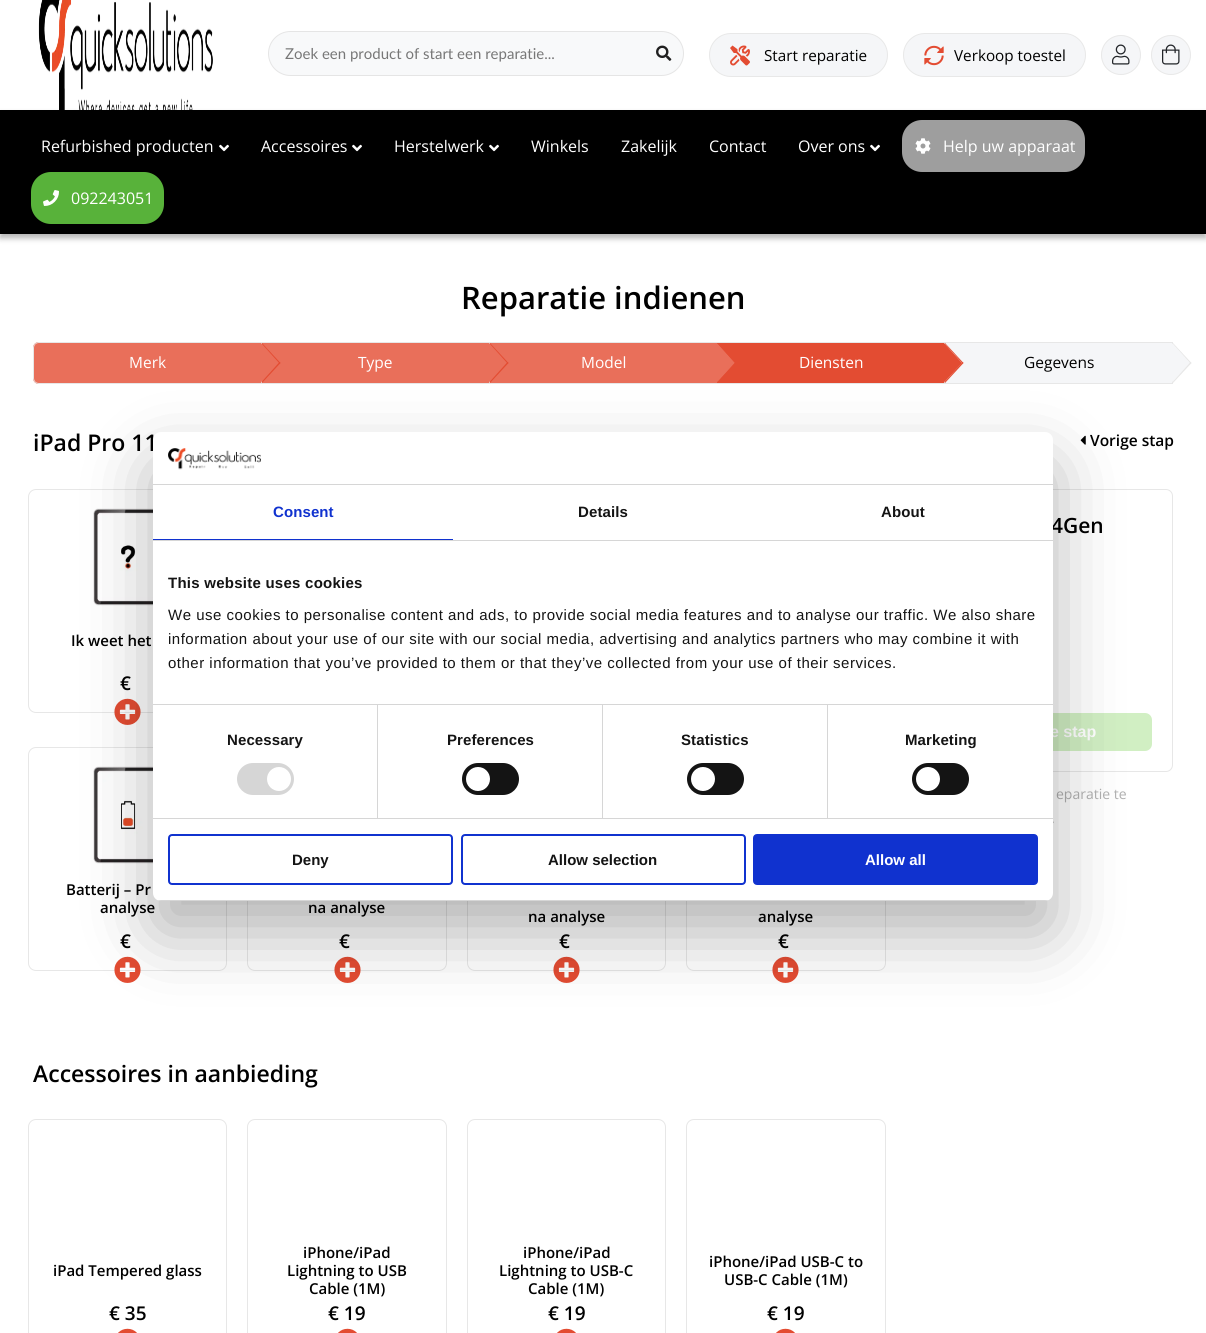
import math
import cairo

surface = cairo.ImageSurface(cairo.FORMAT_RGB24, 1206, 1333)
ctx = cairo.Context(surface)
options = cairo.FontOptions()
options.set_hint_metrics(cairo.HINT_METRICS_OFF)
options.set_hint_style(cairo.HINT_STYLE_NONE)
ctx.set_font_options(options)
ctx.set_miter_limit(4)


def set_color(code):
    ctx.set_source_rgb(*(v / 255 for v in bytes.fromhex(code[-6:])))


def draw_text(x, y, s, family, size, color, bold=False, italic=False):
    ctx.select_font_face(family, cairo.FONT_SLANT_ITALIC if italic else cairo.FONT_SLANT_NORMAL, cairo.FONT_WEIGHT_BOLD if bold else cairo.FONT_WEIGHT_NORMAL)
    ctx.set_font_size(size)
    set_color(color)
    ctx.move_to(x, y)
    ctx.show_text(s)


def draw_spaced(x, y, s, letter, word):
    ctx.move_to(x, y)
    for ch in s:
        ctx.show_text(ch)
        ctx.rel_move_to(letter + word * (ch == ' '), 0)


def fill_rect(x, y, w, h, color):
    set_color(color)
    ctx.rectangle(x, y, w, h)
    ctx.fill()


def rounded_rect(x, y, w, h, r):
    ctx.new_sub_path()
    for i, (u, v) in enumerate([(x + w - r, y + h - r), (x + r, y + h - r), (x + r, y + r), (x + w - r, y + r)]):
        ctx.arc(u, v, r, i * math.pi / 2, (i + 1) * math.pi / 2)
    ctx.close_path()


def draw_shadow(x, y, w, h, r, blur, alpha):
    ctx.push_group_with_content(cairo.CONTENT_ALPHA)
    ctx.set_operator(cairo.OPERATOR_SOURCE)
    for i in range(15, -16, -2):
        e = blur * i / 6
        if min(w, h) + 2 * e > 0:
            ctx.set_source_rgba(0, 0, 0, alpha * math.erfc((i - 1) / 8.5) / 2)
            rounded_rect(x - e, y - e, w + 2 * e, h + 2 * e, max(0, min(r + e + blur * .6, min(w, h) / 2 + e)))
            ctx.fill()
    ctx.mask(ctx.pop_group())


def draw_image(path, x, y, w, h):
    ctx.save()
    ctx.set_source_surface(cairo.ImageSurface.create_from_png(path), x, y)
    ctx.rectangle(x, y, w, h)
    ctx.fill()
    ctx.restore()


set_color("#ffffff")
ctx.paint()
set_color("#000000")
draw_shadow(0, 114, 1206, 124, 0, 3, 0.3)
draw_image("assets/img1.png", 38, 0, 175, 110)
set_color("#f8f9fa")
rounded_rect(268.5, 31.5, 415, 44, 22)
ctx.fill_preserve()
set_color("#e5e5e5")
ctx.set_line_width(1)
ctx.stroke()
draw_text(285, 59, "Zoek een product of start een reparatie...", "Lato", 15, "#777777")
draw_image("assets/img2.png", 656, 45, 16, 16)
set_color("#f5f6f8")
rounded_rect(709.5, 33.5, 178, 43, 21.5)
ctx.fill_preserve()
set_color("#e8e8e8")
ctx.stroke()
draw_image("assets/img3.png", 730, 45, 20, 21)
draw_text(764, 61, "Start reparatie", "Open Sans", 15.25, "#000000")
set_color("#f5f6f8")
rounded_rect(903.5, 33.5, 182, 43, 21.5)
ctx.fill_preserve()
set_color("#e8e8e8")
ctx.stroke()
draw_image("assets/img4.png", 924, 45, 20, 21)
draw_text(954, 61, "Verkoop toestel", "Open Sans", 15.25, "#000000")
set_color("#f5f6f8")
ctx.new_path()
ctx.arc(1121, 55, 19.5, 0, 2 * math.pi)
ctx.fill_preserve()
set_color("#e8e8e8")
ctx.stroke()
draw_image("assets/img5.png", 1112, 44, 18, 21)
set_color("#f5f6f8")
ctx.arc(1171, 55, 19.5, 0, 2 * math.pi)
ctx.fill_preserve()
set_color("#e8e8e8")
ctx.stroke()
draw_image("assets/img6.png", 1162, 44, 18, 21)
fill_rect(0, 110, 1206, 124, "#000000")
draw_text(41, 152, "Refurbished producten", "Open Sans", 16, "#ffffff")
draw_image("assets/img7.png", 219, 144, 10, 8)
draw_text(261, 152, "Accessoires", "Open Sans", 16, "#ffffff")
draw_image("assets/img7.png", 352, 144, 10, 8)
draw_text(394, 152, "Herstelwerk", "Open Sans", 16, "#ffffff")
draw_image("assets/img7.png", 489, 144, 10, 8)
draw_text(531, 152, "Winkels", "Open Sans", 16, "#ffffff")
draw_text(621, 152, "Zakelijk", "Open Sans", 16, "#ffffff")
draw_text(709, 152, "Contact", "Open Sans", 16, "#ffffff")
draw_text(798, 152, "Over ons", "Open Sans", 16, "#ffffff")
draw_image("assets/img7.png", 870, 144, 10, 8)
set_color("#9e9e9e")
rounded_rect(902, 120, 183, 52, 20)
ctx.fill()
draw_image("assets/img8.png", 915, 138, 16, 16)
draw_text(943, 152, "Help uw apparaat", "Open Sans", 16, "#ffffff")
set_color("#58b23a")
rounded_rect(31, 172, 133, 52, 20)
ctx.fill()
draw_image("assets/img9.png", 43, 190, 16, 16)
draw_text(71, 204, "092243051", "Open Sans", 16, "#ffffff")
draw_text(461, 309, "Reparatie indienen", "Open Sans SemiBold", 31, "#000000")
set_color("#e96f5a")
ctx.new_path()
ctx.move_to(39, 342)
ctx.line_to(261, 342)
ctx.line_to(261, 384)
ctx.line_to(39, 384)
ctx.curve_to(35.5, 384, 33, 381.5, 33, 378)
ctx.line_to(33, 348)
ctx.curve_to(33, 344.5, 35.5, 342, 39, 342)
ctx.close_path()
ctx.fill()
set_color("#e7e7e7")
ctx.set_fill_rule(cairo.FILL_RULE_EVEN_ODD)
ctx.new_path()
ctx.move_to(39, 342)
ctx.line_to(261, 342)
ctx.line_to(261, 384)
ctx.line_to(39, 384)
ctx.curve_to(36, 384, 33, 381, 33, 378)
ctx.line_to(33, 348)
ctx.curve_to(33, 345, 36, 342, 39, 342)
ctx.close_path()
ctx.move_to(39, 343)
ctx.line_to(261, 343)
ctx.line_to(261, 383)
ctx.line_to(39, 383)
ctx.curve_to(36, 383, 34, 381, 34, 378)
ctx.line_to(34, 348)
ctx.curve_to(34, 345, 36, 343, 39, 343)
ctx.close_path()
ctx.fill()
draw_text(129, 368, "Merk", "Open Sans", 15.5, "#ffffff")
fill_rect(262, 343, 227, 40, "#e96f5a")
fill_rect(261, 342, 684, 1, "#e7e7e7")
fill_rect(261, 383, 456, 1, "#e7e7e7")
fill_rect(261, 342, 1, 42, "#e7e7e7")
set_color("#e96f5a")
ctx.set_fill_rule(cairo.FILL_RULE_WINDING)
ctx.new_path()
ctx.move_to(244, 363)
ctx.line_to(261.5, 343.5)
ctx.line_to(279, 363)
ctx.line_to(261.5, 382)
ctx.close_path()
ctx.fill()
set_color("#e34c32")
ctx.new_path()
ctx.move_to(261.5, 343.5)
ctx.line_to(262, 343)
ctx.line_to(280.5, 363)
ctx.line_to(279.5, 363.5)
ctx.close_path()
ctx.fill()
ctx.new_path()
ctx.move_to(261.5, 382)
ctx.line_to(279.5, 362)
ctx.line_to(280.5, 363)
ctx.line_to(262, 383)
ctx.close_path()
ctx.fill()
draw_text(358, 368, "Type", "Open Sans", 15.5, "#ffffff")
fill_rect(490, 343, 227, 40, "#e96f5a")
fill_rect(489, 342, 1, 42, "#e7e7e7")
set_color("#e96f5a")
ctx.new_path()
ctx.move_to(472, 363)
ctx.line_to(489.5, 343.5)
ctx.line_to(507, 363)
ctx.line_to(489.5, 382)
ctx.close_path()
ctx.fill()
set_color("#e34c32")
ctx.new_path()
ctx.move_to(489.5, 343.5)
ctx.line_to(490, 343)
ctx.line_to(508.5, 363)
ctx.line_to(507.5, 363.5)
ctx.close_path()
ctx.fill()
ctx.new_path()
ctx.move_to(489.5, 382)
ctx.line_to(507.5, 362)
ctx.line_to(508.5, 363)
ctx.line_to(490, 383)
ctx.close_path()
ctx.fill()
draw_text(581, 368, "Model", "Open Sans", 15.5, "#ffffff")
fill_rect(717, 343, 227, 40, "#e34c32")
set_color("#e96f5a")
ctx.new_path()
ctx.move_to(700, 363)
ctx.line_to(717.5, 343.5)
ctx.line_to(735, 363)
ctx.line_to(717.5, 382)
ctx.close_path()
ctx.fill()
set_color("#e34c32")
ctx.new_path()
ctx.move_to(717.5, 343.5)
ctx.line_to(718, 343)
ctx.line_to(736.5, 363)
ctx.line_to(735.5, 363.5)
ctx.close_path()
ctx.fill()
ctx.new_path()
ctx.move_to(717.5, 382)
ctx.line_to(735.5, 362)
ctx.line_to(736.5, 363)
ctx.line_to(718, 383)
ctx.close_path()
ctx.fill()
fill_rect(944, 342, 1, 42, "#e7e7e7")
fill_rect(717, 383, 228, 1, "#e7e7e7")
draw_text(799, 368, "Diensten", "Open Sans", 15.5, "#ffffff")
set_color("#f5f6f8")
ctx.rectangle(945.5, 342.5, 227, 41)
ctx.fill_preserve()
set_color("#e7e7e7")
ctx.stroke()
set_color("#e34c32")
ctx.new_path()
ctx.move_to(927, 363)
ctx.line_to(944.5, 343.5)
ctx.line_to(962, 363)
ctx.line_to(944.5, 382)
ctx.close_path()
ctx.fill()
ctx.new_path()
ctx.move_to(944.5, 343.5)
ctx.line_to(945, 343)
ctx.line_to(963.5, 363)
ctx.line_to(962.5, 363.5)
ctx.close_path()
ctx.fill()
ctx.new_path()
ctx.move_to(944.5, 382)
ctx.line_to(962.5, 362)
ctx.line_to(963.5, 363)
ctx.line_to(945, 383)
ctx.close_path()
ctx.fill()
draw_text(1024, 368, "Gegevens", "Open Sans", 15.5, "#000000")
set_color("#f5f6f8")
ctx.new_path()
ctx.move_to(1155, 363)
ctx.line_to(1172.5, 343.5)
ctx.line_to(1190, 363)
ctx.line_to(1172.5, 382)
ctx.close_path()
ctx.fill()
set_color("#e7e7e7")
ctx.new_path()
ctx.move_to(1172.5, 343.5)
ctx.line_to(1173, 343)
ctx.line_to(1191.5, 363)
ctx.line_to(1190.5, 363.5)
ctx.close_path()
ctx.fill()
ctx.new_path()
ctx.move_to(1172.5, 382)
ctx.line_to(1190.5, 362)
ctx.line_to(1191.5, 363)
ctx.line_to(1173, 383)
ctx.close_path()
ctx.fill()
draw_text(33, 451, "iPad Pro 11", "Open Sans SemiBold", 23, "#000000")
draw_image("assets/img10.png", 1080, 435, 6, 10)
draw_text(1090, 446, "Vorige stap", "Open Sans SemiBold", 15.5, "#000000")
rounded_rect(28.5, 489.5, 198, 223, 7.5)
set_color("#e7e7e7")
ctx.stroke()
draw_image("assets/img11.png", 93, 508, 60, 98)
draw_text(71, 646, "Ik weet het", "Open Sans SemiBold", 15, "#000000")
draw_text(120, 690, "€", "Open Sans SemiBold", 19, "#000000")
draw_image("assets/img12.png", 114, 698, 27, 27)
rounded_rect(28.5, 747.5, 198, 223, 7.5)
set_color("#e7e7e7")
ctx.stroke()
draw_image("assets/img13.png", 93, 766, 60, 98)
draw_text(66, 895, "Batterij – Pr", "Open Sans SemiBold", 15, "#000000")
draw_text(100, 913, "analyse", "Open Sans SemiBold", 15, "#000000")
draw_text(120, 948, "€", "Open Sans SemiBold", 19, "#000000")
draw_image("assets/img12.png", 114, 956, 27, 27)
rounded_rect(247.5, 747.5, 199, 223, 7.5)
set_color("#e7e7e7")
ctx.stroke()
draw_text(308, 913, "na analyse", "Open Sans SemiBold", 15, "#000000")
draw_text(339, 948, "€", "Open Sans SemiBold", 19, "#000000")
draw_image("assets/img12.png", 334, 956, 27, 27)
rounded_rect(467.5, 747.5, 198, 223, 7.5)
set_color("#e7e7e7")
ctx.stroke()
draw_text(528, 922, "na analyse", "Open Sans SemiBold", 15, "#000000")
draw_text(559, 948, "€", "Open Sans SemiBold", 19, "#000000")
draw_image("assets/img12.png", 553, 956, 27, 27)
rounded_rect(686.5, 747.5, 199, 223, 7.5)
set_color("#e7e7e7")
ctx.stroke()
draw_text(758, 922, "analyse", "Open Sans SemiBold", 15, "#000000")
draw_text(778, 948, "€", "Open Sans SemiBold", 19, "#000000")
draw_image("assets/img12.png", 772, 956, 27, 27)
draw_text(33, 1082, "Accessoires in aanbieding", "Open Sans SemiBold", 23, "#000000")
rounded_rect(28.5, 1119.5, 198, 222, 7.5)
set_color("#e7e7e7")
ctx.stroke()
draw_text(53, 1276, "iPad Tempered glass", "Open Sans SemiBold", 15, "#000000")
draw_text(109, 1320, "€ 35", "Open Sans SemiBold", 19, "#000000")
draw_image("assets/img14.png", 118, 1328, 19, 5)
rounded_rect(247.5, 1119.5, 199, 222, 7.5)
set_color("#e7e7e7")
ctx.stroke()
draw_text(303, 1258, "iPhone/iPad", "Open Sans SemiBold", 15, "#000000")
draw_text(287, 1276, "Lightning to USB", "Open Sans SemiBold", 15, "#000000")
draw_text(309, 1294, "Cable (1M)", "Open Sans SemiBold", 15, "#000000")
draw_text(328, 1320, "€ 19", "Open Sans SemiBold", 19, "#000000")
draw_image("assets/img14.png", 338, 1328, 19, 5)
rounded_rect(467.5, 1119.5, 198, 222, 7.5)
set_color("#e7e7e7")
ctx.stroke()
draw_text(523, 1258, "iPhone/iPad", "Open Sans SemiBold", 15, "#000000")
draw_text(499, 1276, "Lightning to USB-C", "Open Sans SemiBold", 15, "#000000")
draw_text(528, 1294, "Cable (1M)", "Open Sans SemiBold", 15, "#000000")
draw_text(548, 1320, "€ 19", "Open Sans SemiBold", 19, "#000000")
draw_image("assets/img14.png", 557, 1328, 19, 5)
rounded_rect(686.5, 1119.5, 199, 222, 7.5)
set_color("#e7e7e7")
ctx.stroke()
draw_text(709, 1267, "iPhone/iPad USB-C to", "Open Sans SemiBold", 15, "#000000")
draw_text(724, 1285, "USB-C Cable (1M)", "Open Sans SemiBold", 15, "#000000")
draw_text(767, 1320, "€ 19", "Open Sans SemiBold", 19, "#000000")
draw_image("assets/img14.png", 776, 1328, 19, 5)
rounded_rect(911.5, 489.5, 261, 282, 6.5)
set_color("#e7e7e7")
ctx.stroke()
draw_text(1051, 533, "4Gen", "Open Sans SemiBold", 21, "#000000")
set_color("#d1efc3")
rounded_rect(932, 713, 220, 38, 7)
ctx.fill()
draw_text(1050, 737, "e stap", "Liberation Sans", 16, "#ffffff", bold=True)
draw_text(1056, 799, "eparatie te", "Open Sans", 14, "#b0b0b0")
draw_text(1051, 823, ".", "Open Sans", 14, "#b0b0b0")
set_color("#000000")
draw_shadow(153, 464, 900, 469, 8, 34, 0.3)
set_color("#ffffff")
rounded_rect(153, 432, 900, 469, 8)
ctx.fill()
fill_rect(153, 484, 900, 1, "#d6d6d6")
draw_image("assets/img15.png", 168, 448, 93, 22)
fill_rect(153, 540, 900, 1, "#d6d6d6")
fill_rect(153, 539, 300, 1, "#1032cf")
ctx.select_font_face("Liberation Sans", cairo.FONT_SLANT_NORMAL, cairo.FONT_WEIGHT_BOLD)
ctx.set_font_size(15)
draw_spaced(273, 517, "Consent", 0.1, 0)
set_color("#141414")
draw_spaced(578, 517, "Details", 0.1, 0)
draw_spaced(881, 517, "About", 0.1, 0)
fill_rect(153, 704, 900, 1, "#d6d6d6")
set_color("#141414")
draw_spaced(168, 588, "This website uses cookies", 0.25, 0)
ctx.select_font_face("Liberation Sans")
draw_spaced(168, 620, "We use cookies to personalise content and ads, to provide social media features and to analyse our traffic. We also share", 0.5, 0)
draw_spaced(168, 644, "information about your use of our site with our social media, advertising and analytics partners who may combine it with", 0.5, 0)
draw_spaced(168, 668, "other information that you’ve provided to them or that they’ve collected from your use of their services.", 0.5, 0)
fill_rect(153, 818, 900, 1, "#d6d6d6")
fill_rect(377, 705, 1, 113, "#d6d6d6")
ctx.select_font_face("Liberation Sans", cairo.FONT_SLANT_NORMAL, cairo.FONT_WEIGHT_BOLD)
set_color("#141414")
draw_spaced(227, 745, "Necessary", 0.1, 0)
set_color("#d6d6d6")
rounded_rect(237, 763, 57, 32, 16)
ctx.fill()
set_color("#ffffff")
ctx.arc(279, 779, 12, 0, 2 * math.pi)
ctx.fill()
fill_rect(602, 705, 1, 113, "#d6d6d6")
set_color("#141414")
draw_spaced(447, 745, "Preferences", 0.1, 0)
rounded_rect(462, 763, 57, 32, 16)
ctx.fill()
set_color("#ffffff")
ctx.arc(478, 779, 12, 0, 2 * math.pi)
ctx.fill()
fill_rect(827, 705, 1, 113, "#d6d6d6")
set_color("#141414")
draw_spaced(681, 745, "Statistics", 0.1, 0)
rounded_rect(687, 763, 57, 32, 16)
ctx.fill()
set_color("#ffffff")
ctx.arc(703, 779, 12, 0, 2 * math.pi)
ctx.fill()
set_color("#141414")
draw_spaced(905, 745, "Marketing", 0.1, 0)
rounded_rect(912, 763, 57, 32, 16)
ctx.fill()
set_color("#ffffff")
ctx.arc(928, 779, 12, 0, 2 * math.pi)
ctx.fill()
ctx.save()
rounded_rect(153, 432, 900, 469, 8)
ctx.clip()
fill_rect(153, 900, 900, 1, "#d6d6d6")
ctx.restore()
rounded_rect(169, 835, 283, 49, 3)
set_color("#1032cf")
ctx.set_line_width(2)
ctx.stroke()
draw_text(292, 865, "Deny", "Liberation Sans", 15, "#141414", bold=True)
rounded_rect(462, 835, 283, 49, 3)
set_color("#1032cf")
ctx.stroke()
draw_text(548, 865, "Allow selection", "Liberation Sans", 15, "#141414", bold=True)
set_color("#1032cf")
rounded_rect(754, 835, 283, 49, 3)
ctx.fill_preserve()
ctx.stroke()
draw_text(865, 865, "Allow all", "Liberation Sans", 15, "#ffffff", bold=True)
surface.write_to_png("output.png")
